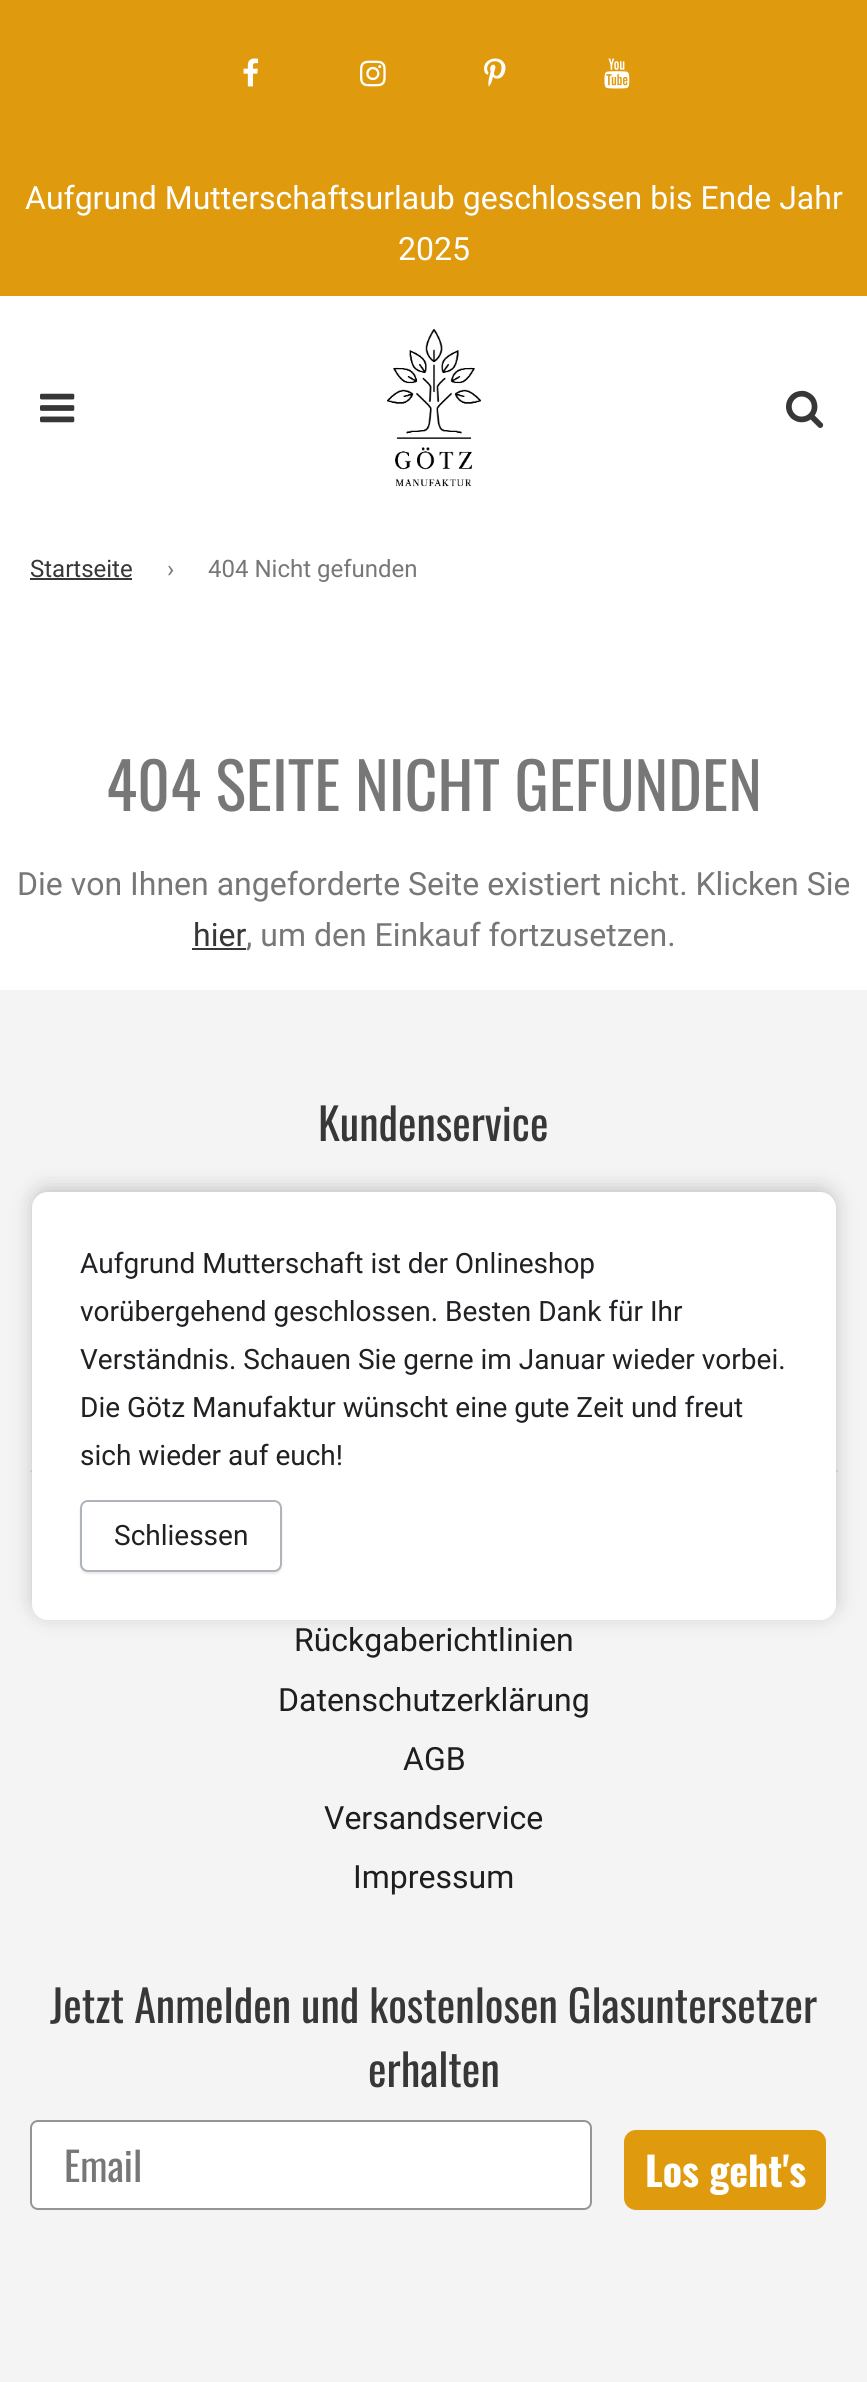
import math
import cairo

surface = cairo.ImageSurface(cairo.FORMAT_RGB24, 867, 2382)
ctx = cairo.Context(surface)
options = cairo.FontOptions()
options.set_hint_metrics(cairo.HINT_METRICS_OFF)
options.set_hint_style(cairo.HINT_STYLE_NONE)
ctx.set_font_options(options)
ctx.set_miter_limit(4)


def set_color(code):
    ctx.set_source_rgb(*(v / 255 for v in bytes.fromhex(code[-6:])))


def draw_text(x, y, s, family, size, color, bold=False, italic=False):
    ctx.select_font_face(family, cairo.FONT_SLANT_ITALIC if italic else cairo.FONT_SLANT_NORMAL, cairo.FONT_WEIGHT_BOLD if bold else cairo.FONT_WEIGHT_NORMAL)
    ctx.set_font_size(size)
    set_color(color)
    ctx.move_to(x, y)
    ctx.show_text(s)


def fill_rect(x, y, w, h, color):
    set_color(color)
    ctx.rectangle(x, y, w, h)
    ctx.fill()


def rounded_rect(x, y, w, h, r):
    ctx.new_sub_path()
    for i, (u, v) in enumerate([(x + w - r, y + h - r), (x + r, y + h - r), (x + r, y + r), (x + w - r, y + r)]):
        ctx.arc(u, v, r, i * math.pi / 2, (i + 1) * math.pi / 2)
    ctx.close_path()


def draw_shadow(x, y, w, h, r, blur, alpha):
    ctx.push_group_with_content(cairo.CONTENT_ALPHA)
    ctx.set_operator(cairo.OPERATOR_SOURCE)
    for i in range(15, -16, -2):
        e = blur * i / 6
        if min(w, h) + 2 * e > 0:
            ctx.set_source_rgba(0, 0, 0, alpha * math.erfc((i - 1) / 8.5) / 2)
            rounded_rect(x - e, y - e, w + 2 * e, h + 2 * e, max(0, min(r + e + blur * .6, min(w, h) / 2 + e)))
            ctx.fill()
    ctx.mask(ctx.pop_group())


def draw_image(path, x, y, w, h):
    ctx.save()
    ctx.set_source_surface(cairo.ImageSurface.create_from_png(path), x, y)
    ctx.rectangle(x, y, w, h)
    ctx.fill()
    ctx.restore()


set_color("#ffffff")
ctx.paint()
fill_rect(0, 0, 867, 296, "#e09a0e")
draw_image("assets/img1.png", 243, 58, 16, 29)
draw_image("assets/img2.png", 360, 60, 26, 27)
draw_image("assets/img3.png", 484, 58, 22, 29)
draw_image("assets/img4.png", 604, 58, 26, 31)
draw_text(25, 209, "Aufgrund Mutterschaftsurlaub geschlossen bis Ende Jahr", "Roboto", 32, "#ffffff")
draw_text(398, 260, "2025", "Roboto", 32, "#ffffff")
draw_image("assets/img5.png", 40, 393, 35, 30)
draw_image("assets/img6.png", 387, 329, 95, 158)
draw_image("assets/img7.png", 786, 390, 38, 38)
draw_text(30, 577, "Startseite", "Roboto", 24, "#373737")
fill_rect(30, 578, 102, 2, "#373737")
draw_text(167, 577, "›", "Roboto", 24, "#777777")
draw_text(208, 577, "404 Nicht gefunden", "Roboto", 24, "#777777")
draw_text(106, 811, "404 SEITE NICHT GEFUNDEN", "Oswald", 64, "#777777")
draw_text(17, 895, "Die von Ihnen angeforderte Seite existiert nicht. Klicken Sie", "Roboto", 32, "#777777")
draw_text(193, 946, "hier", "Roboto", 32, "#373737")
fill_rect(192, 948, 54, 2, "#373737")
draw_text(246, 946, ", um den Einkauf fortzusetzen.", "Roboto", 32, "#777777")
fill_rect(0, 990, 867, 1392, "#f4f4f4")
draw_text(318, 1141, "Kundenservice", "Oswald", 44, "#373737")
fill_rect(30, 1470, 808, 2, "#e1e1e1")
draw_text(294, 1651, "Rückgaberichtlinien", "Roboto", 32, "#1e1e1e")
draw_text(278, 1711, "Datenschutzerklärung", "Roboto", 32, "#1e1e1e")
draw_text(403, 1770, "AGB", "Roboto", 32, "#1e1e1e")
draw_text(324, 1829, "Versandservice", "Roboto", 32, "#1e1e1e")
draw_text(353, 1888, "Impressum", "Roboto", 32, "#1e1e1e")
draw_text(50, 2023, "Jetzt Anmelden und kostenlosen Glasuntersetzer", "Oswald", 44, "#373737")
draw_text(368, 2087, "erhalten", "Oswald", 44, "#373737")
set_color("#ffffff")
rounded_rect(31, 2121, 560, 88, 7)
ctx.fill_preserve()
set_color("#949596")
ctx.stroke()
draw_text(64, 2182, "Email", "Oswald", 40, "#777777")
set_color("#e09a0e")
rounded_rect(624, 2130, 202, 80, 12)
ctx.fill()
draw_text(645, 2187, "Los geht's", "Oswald", 40, "#ffffff", bold=True)
set_color("#000000")
draw_shadow(32, 1188, 804, 428, 16, 10, 0.2)
set_color("#ffffff")
rounded_rect(32, 1192, 804, 428, 16)
ctx.fill()
draw_text(80, 1273, "Aufgrund Mutterschaft ist der Onlineshop", "Roboto", 28, "#1f2124")
draw_text(80, 1321, "vorübergehend geschlossen. Besten Dank für Ihr", "Roboto", 28, "#1f2124")
draw_text(80, 1369, "Verständnis. Schauen Sie gerne im Januar wieder vorbei.", "Roboto", 28, "#1f2124")
draw_text(80, 1417, "Die Götz Manufaktur wünscht eine gute Zeit und freut", "Roboto", 28, "#1f2124")
draw_text(80, 1465, "sich wieder auf euch!", "Roboto", 28, "#1f2124")
set_color("#1f2124")
draw_shadow(80, 1502, 202, 72, 8, 1, 0.1)
set_color("#ffffff")
rounded_rect(81, 1501, 200, 70, 7)
ctx.fill_preserve()
set_color("#aeb4b9")
ctx.stroke()
draw_text(114, 1545, "Schliessen", "Roboto", 28, "#1f2124")
surface.write_to_png("output.png")
